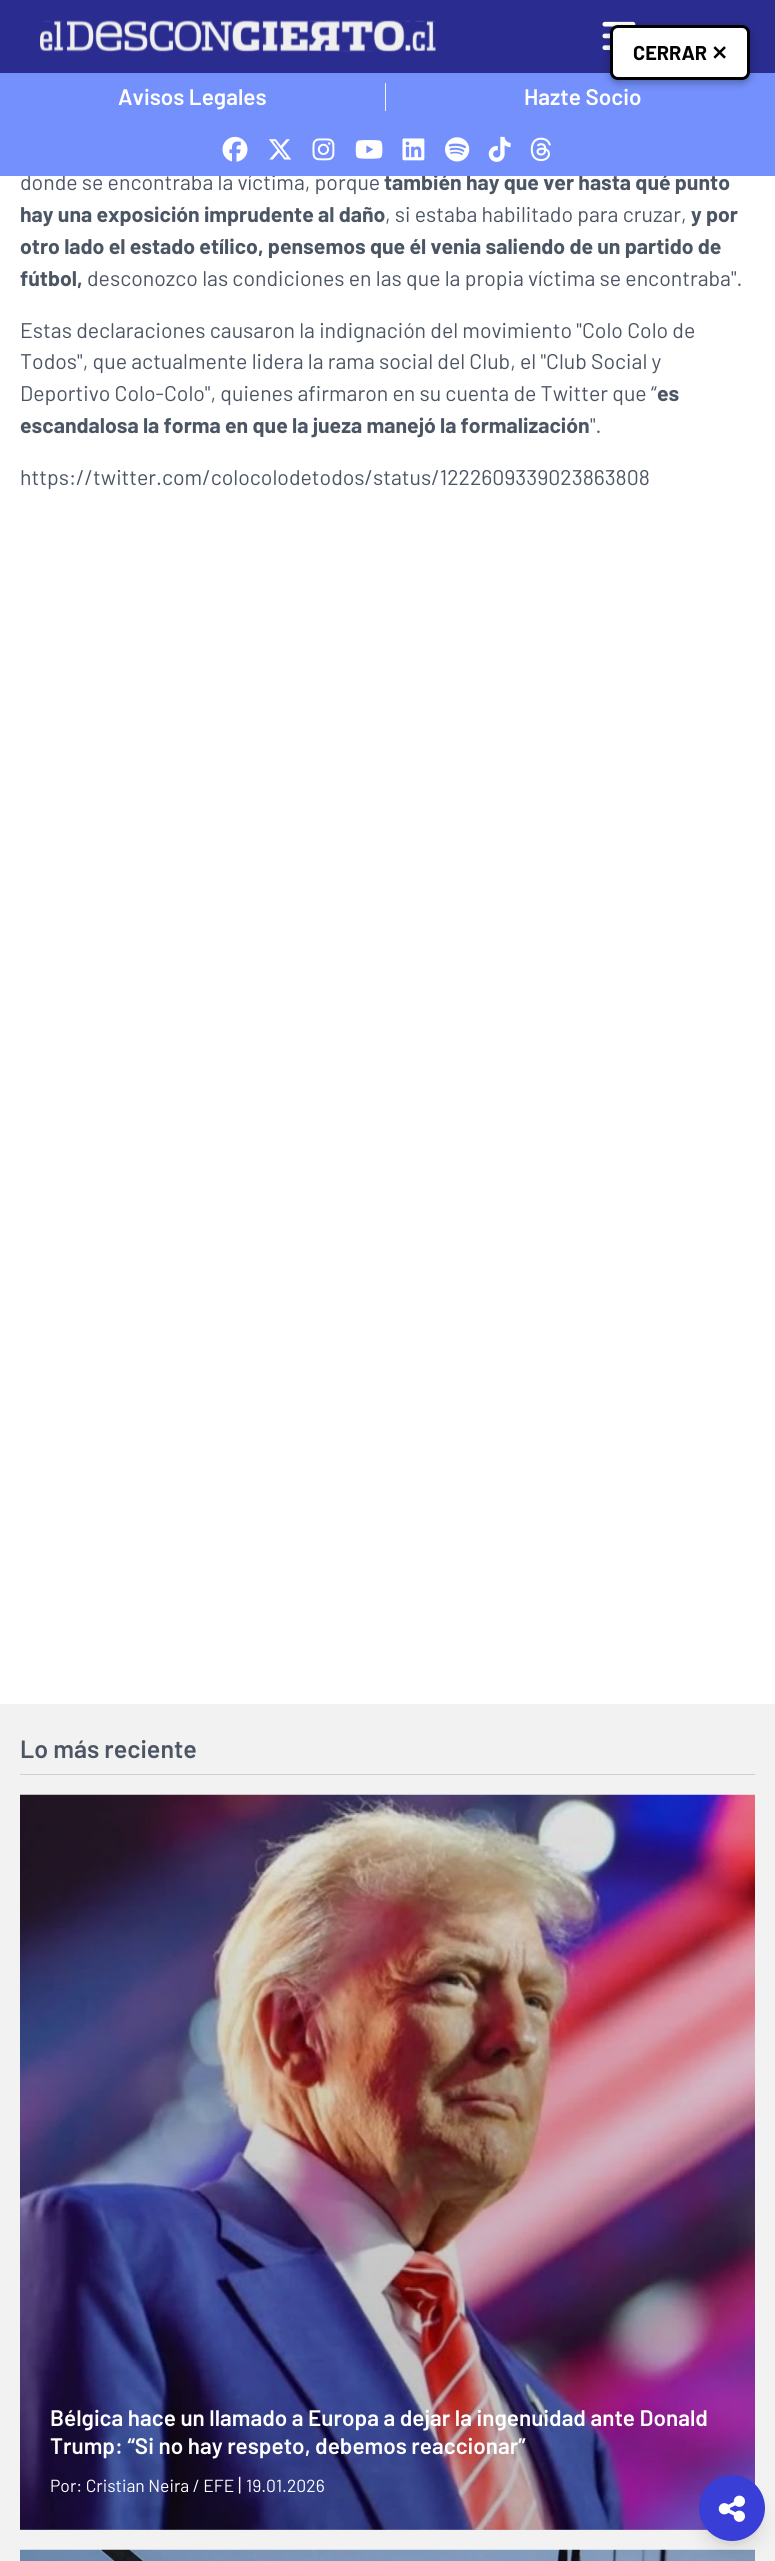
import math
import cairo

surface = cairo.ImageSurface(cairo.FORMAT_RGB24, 775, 2561)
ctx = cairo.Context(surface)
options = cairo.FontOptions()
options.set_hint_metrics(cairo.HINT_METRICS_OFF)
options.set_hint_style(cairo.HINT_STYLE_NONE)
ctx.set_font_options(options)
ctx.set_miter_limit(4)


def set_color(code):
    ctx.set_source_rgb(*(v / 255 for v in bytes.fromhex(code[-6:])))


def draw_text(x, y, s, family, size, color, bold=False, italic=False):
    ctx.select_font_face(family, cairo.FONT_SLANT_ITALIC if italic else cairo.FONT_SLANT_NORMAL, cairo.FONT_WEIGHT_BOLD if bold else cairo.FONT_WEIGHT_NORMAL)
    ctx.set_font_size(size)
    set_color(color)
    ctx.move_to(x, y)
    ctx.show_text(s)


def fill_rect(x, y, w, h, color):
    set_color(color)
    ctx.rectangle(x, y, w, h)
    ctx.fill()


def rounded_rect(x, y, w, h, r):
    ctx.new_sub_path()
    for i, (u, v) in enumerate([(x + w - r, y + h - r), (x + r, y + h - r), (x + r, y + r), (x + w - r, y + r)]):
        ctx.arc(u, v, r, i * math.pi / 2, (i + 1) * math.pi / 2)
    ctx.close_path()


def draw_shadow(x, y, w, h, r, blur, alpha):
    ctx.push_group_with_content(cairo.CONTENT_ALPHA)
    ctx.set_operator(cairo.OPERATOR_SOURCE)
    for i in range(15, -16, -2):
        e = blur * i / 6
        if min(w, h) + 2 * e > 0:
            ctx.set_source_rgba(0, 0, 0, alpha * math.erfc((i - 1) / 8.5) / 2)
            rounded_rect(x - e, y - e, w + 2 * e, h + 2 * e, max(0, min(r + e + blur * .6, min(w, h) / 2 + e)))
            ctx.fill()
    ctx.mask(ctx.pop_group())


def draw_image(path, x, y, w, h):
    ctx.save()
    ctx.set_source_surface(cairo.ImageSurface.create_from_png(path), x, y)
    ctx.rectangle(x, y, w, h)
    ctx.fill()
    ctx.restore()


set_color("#ffffff")
ctx.paint()
fill_rect(0, 0, 775, 73, "#2a2c90")
draw_image("assets/img2.png", 602, 21, 34, 29)
draw_text(20, 190, "donde se encontraba la víctima, porque", "Barlow", 21.25, "#4b5563")
draw_text(384, 190, "también hay que ver hasta qué punto", "Barlow", 21.25, "#4b5563", bold=True)
fill_rect(0, 73, 775, 103, "#7490fc")
set_color("#000000")
draw_shadow(610, 28, 140, 55, 8, 4, 0.3)
set_color("#ffffff")
rounded_rect(611.5, 26.5, 137, 52, 6.5)
ctx.fill_preserve()
set_color("#000000")
ctx.set_line_width(3)
ctx.stroke()
draw_text(633, 60, "CERRAR", "Barlow", 20, "#000000", bold=True)
draw_text(711, 60, "✕", "DejaVu Sans", 20, "#000000", bold=True)
draw_image("assets/img1.png", 40, 20, 397, 32)
draw_text(118, 105, "Avisos Legales", "Barlow SemiBold", 22.5, "#ffffff")
fill_rect(385, 83, 1, 28, "#f2f2f2")
draw_text(524, 105, "Hazte Socio", "Barlow SemiBold", 22.5, "#ffffff")
draw_image("assets/img3.png", 222, 136, 26, 26)
draw_image("assets/img4.png", 269, 139, 23, 21)
draw_image("assets/img5.png", 312, 138, 23, 23)
draw_image("assets/img6.png", 355, 140, 28, 19)
draw_image("assets/img7.png", 402, 138, 23, 23)
draw_image("assets/img8.png", 445, 137, 25, 25)
draw_image("assets/img9.png", 488, 136, 23, 26)
draw_image("assets/img10.png", 530, 137, 21, 25)
draw_text(20, 222, "hay una exposición imprudente al daño", "Barlow", 21.25, "#4b5563", bold=True)
draw_text(385, 222, ", si estaba habilitado para cruzar,", "Barlow", 21.25, "#4b5563")
draw_text(691, 222, "y por", "Barlow", 21.25, "#4b5563", bold=True)
draw_text(20, 254, "otro lado el estado etílico, pensemos que él venia saliendo de un partido de", "Barlow", 21.25, "#4b5563", bold=True)
draw_text(20, 286, "fútbol,", "Barlow", 21.25, "#4b5563", bold=True)
draw_text(87, 286, "desconozco las condiciones en las que la propia víctima se encontraba\".", "Barlow", 21.25, "#4b5563")
draw_text(20, 338, "Estas declaraciones causaron la indignación del movimiento \"Colo Colo de", "Barlow", 21.25, "#4b5563")
draw_text(20, 369, "Todos\", que actualmente lidera la rama social del Club, el \"Club Social y", "Barlow", 21.25, "#4b5563")
draw_text(20, 401, "Deportivo Colo-Colo\", quienes afirmaron en su cuenta de Twitter que “", "Barlow", 21.25, "#4b5563")
draw_text(657, 401, "es", "Barlow", 21.25, "#4b5563", bold=True)
draw_text(20, 433, "escandalosa la forma en que la jueza manejó la formalización", "Barlow", 21.25, "#4b5563", bold=True)
draw_text(590, 433, "\".", "Barlow", 21.25, "#4b5563")
draw_text(20, 485, "https://twitter.com/colocolodetodos/status/1222609339023863808", "Barlow", 21.25, "#4b5563")
fill_rect(0, 1704, 775, 857, "#f2f2f2")
fill_rect(20, 1774, 735, 1, "#cfcfcf")
draw_text(20, 1758, "Lo más reciente", "Barlow SemiBold", 25, "#4b5563")
draw_image("assets/img11.png", 20, 1794, 735, 736)
gradient = cairo.LinearGradient(388, 2530, 388, 1795)
gradient.add_color_stop_rgba(0, 0, 0, 0, 0.25)
gradient.add_color_stop_rgba(1, 0, 0, 0, 0.1)
ctx.set_source(gradient)
ctx.rectangle(20, 1795, 735, 735)
ctx.fill()
draw_text(50, 2426, "Bélgica hace un llamado a Europa a dejar la ingenuidad ante Donald", "Barlow SemiBold", 22.5, "#ffffff")
draw_text(50, 2454, "Trump: “Si no hay respeto, debemos reaccionar”", "Barlow SemiBold", 22.5, "#ffffff")
draw_text(50, 2492, "Por: Cristian Neira / EFE", "Barlow", 17.5, "#ffffff")
draw_text(238, 2492, "|", "Barlow", 20, "#ffffff")
draw_text(246, 2492, "19.01.2026", "Barlow", 17.5, "#ffffff")
draw_image("assets/img12.png", 20, 2549, 735, 12)
set_color("#000000")
draw_shadow(704, 2485, 56, 56, 28, 4, 0.1)
draw_shadow(703, 2491, 58, 59, 29, 9.5, 0.1)
set_color("#393ed7")
ctx.arc(732, 2508, 33, 0, 2 * math.pi)
ctx.fill()
draw_image("assets/img13.png", 718, 2495, 27, 27)
surface.write_to_png("output.png")
